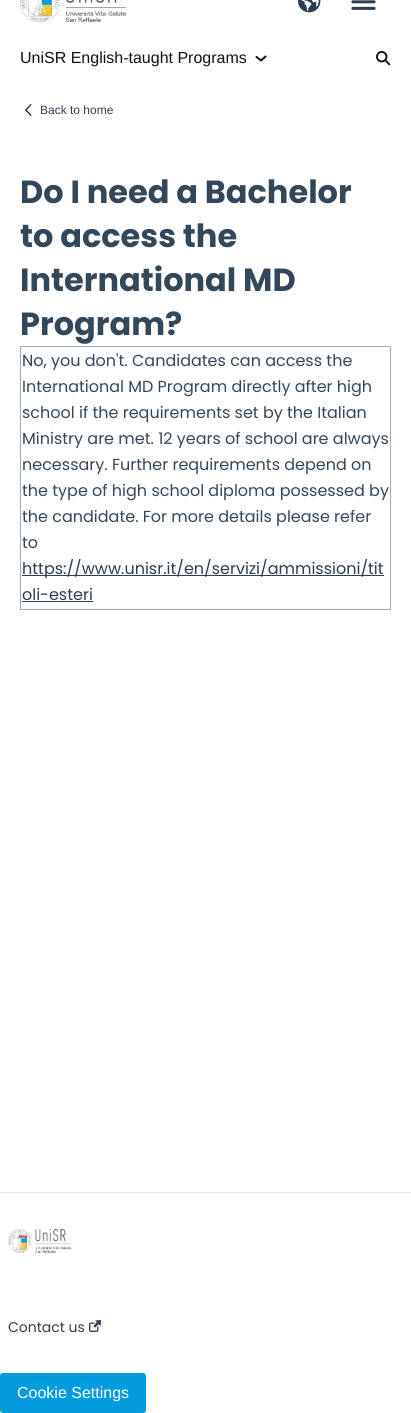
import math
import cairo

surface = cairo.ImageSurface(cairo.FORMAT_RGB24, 411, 1413)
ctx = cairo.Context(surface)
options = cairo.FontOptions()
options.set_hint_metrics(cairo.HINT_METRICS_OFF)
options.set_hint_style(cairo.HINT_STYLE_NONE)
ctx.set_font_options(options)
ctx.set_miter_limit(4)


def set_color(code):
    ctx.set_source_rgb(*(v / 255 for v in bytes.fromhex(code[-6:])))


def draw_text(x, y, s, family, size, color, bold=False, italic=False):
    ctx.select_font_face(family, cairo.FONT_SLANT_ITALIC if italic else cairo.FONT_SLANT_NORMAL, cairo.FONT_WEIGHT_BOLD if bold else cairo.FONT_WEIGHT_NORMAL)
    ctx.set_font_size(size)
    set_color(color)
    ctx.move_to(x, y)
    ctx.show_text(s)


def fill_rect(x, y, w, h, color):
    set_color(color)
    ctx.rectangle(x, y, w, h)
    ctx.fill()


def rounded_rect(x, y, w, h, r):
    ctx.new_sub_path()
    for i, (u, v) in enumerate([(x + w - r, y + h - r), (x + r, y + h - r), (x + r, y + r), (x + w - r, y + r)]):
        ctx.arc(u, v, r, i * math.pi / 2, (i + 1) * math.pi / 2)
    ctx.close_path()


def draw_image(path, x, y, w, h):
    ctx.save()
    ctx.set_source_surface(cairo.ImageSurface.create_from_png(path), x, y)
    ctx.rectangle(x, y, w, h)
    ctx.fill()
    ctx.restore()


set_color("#ffffff")
ctx.paint()
draw_image("assets/img1.png", 20, 0, 106, 22)
draw_image("assets/img2.png", 298, 0, 23, 13)
draw_image("assets/img3.png", 351, 0, 25, 10)
draw_text(20, 63, "UniSR English-taught Programs", "Liberation Sans", 16, "#111111")
ctx.new_path()
ctx.move_to(265.5, 56.5)
ctx.line_to(261, 60.5)
ctx.line_to(256.5, 57)
ctx.set_line_cap(cairo.LINE_CAP_ROUND)
ctx.set_line_join(cairo.LINE_JOIN_ROUND)
ctx.stroke()
draw_image("assets/img4.png", 376, 51, 15, 15)
draw_image("assets/img5.png", 25, 104, 7, 12)
draw_text(40, 114, "Back to home", "Liberation Sans", 12, "#2d3e50")
draw_text(20, 203, "Do I need a Bachelor", "Poppins", 32, "#33475b", bold=True)
draw_text(20, 247, "to access the", "Poppins", 32, "#33475b", bold=True)
draw_text(20, 291, "International MD", "Poppins", 32, "#33475b", bold=True)
draw_text(20, 335, "Program?", "Poppins", 32, "#33475b", bold=True)
fill_rect(20, 346, 371, 1, "#99acc2")
fill_rect(390, 346, 1, 264, "#99acc2")
fill_rect(20, 609, 371, 1, "#99acc2")
fill_rect(20, 346, 1, 264, "#99acc2")
draw_text(22, 366, "No, you don't. Candidates can access the", "Poppins", 16, "#33475b")
draw_text(22, 392, "International MD Program directly after high", "Poppins", 16, "#33475b")
draw_text(22, 418, "school if the requirements set by the Italian", "Poppins", 16, "#33475b")
draw_text(22, 444, "Ministry are met. 12 years of school are always", "Poppins", 16, "#33475b")
draw_text(22, 470, "necessary. Further requirements depend on", "Poppins", 16, "#33475b")
draw_text(22, 496, "the type of high school diploma possessed by", "Poppins", 16, "#33475b")
draw_text(22, 522, "the candidate. For more details please refer", "Poppins", 16, "#33475b")
draw_text(22, 548, "to", "Poppins", 16, "#33475b")
fill_rect(22, 575, 362, 1, "#2d3e50")
draw_text(22, 574, "https://www.unisr.it/en/servizi/ammissioni/tit", "Poppins", 16, "#2d3e50")
draw_text(22, 600, "oli-esteri", "Poppins", 16, "#2d3e50")
fill_rect(22, 601, 71, 1, "#2d3e50")
fill_rect(0, 1192, 411, 1, "#e6e6e6")
draw_image("assets/img6.png", 8, 1229, 63, 24)
draw_text(8, 1332, "Contact us", "Poppins", 14, "#2d3e50")
draw_image("assets/img7.png", 89, 1320, 12, 12)
set_color("#009cde")
rounded_rect(0.5, 1373.5, 145, 39, 2.5)
ctx.fill_preserve()
ctx.set_line_width(1)
ctx.set_line_cap(cairo.LINE_CAP_BUTT)
ctx.set_line_join(cairo.LINE_JOIN_MITER)
ctx.stroke()
draw_text(17, 1398, "Cookie Settings", "Liberation Sans", 16, "#ffffff")
surface.write_to_png("output.png")
